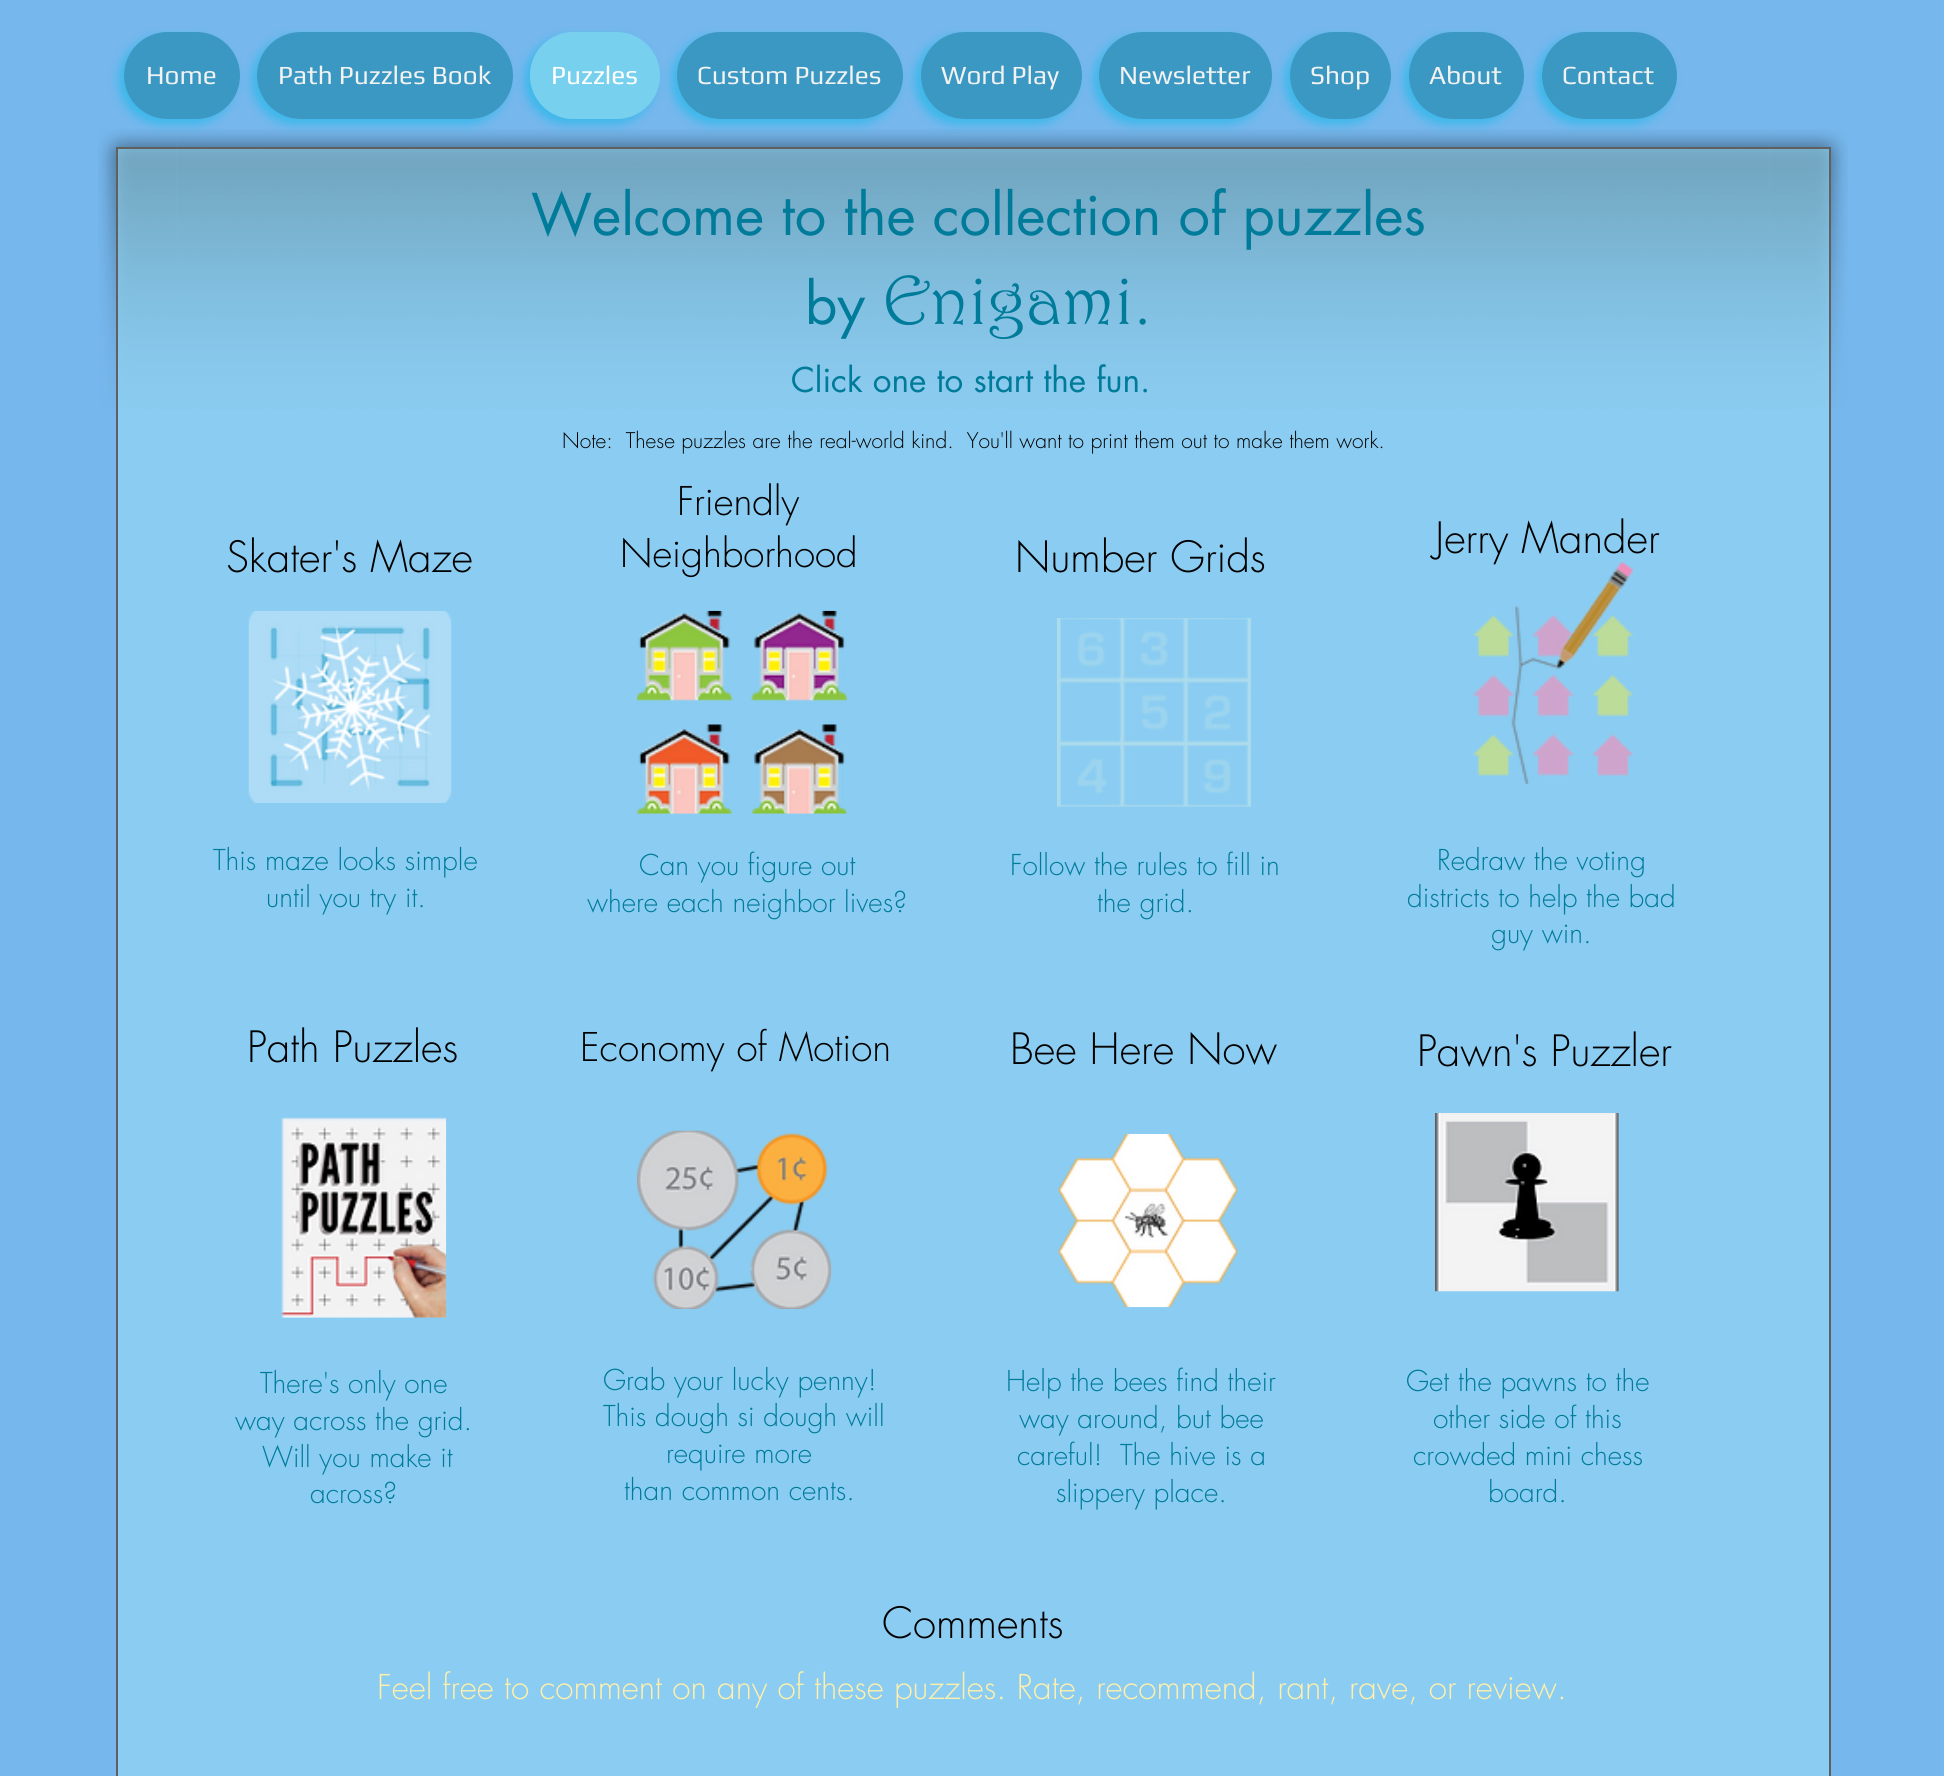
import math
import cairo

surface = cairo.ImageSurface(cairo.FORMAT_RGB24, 1944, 1776)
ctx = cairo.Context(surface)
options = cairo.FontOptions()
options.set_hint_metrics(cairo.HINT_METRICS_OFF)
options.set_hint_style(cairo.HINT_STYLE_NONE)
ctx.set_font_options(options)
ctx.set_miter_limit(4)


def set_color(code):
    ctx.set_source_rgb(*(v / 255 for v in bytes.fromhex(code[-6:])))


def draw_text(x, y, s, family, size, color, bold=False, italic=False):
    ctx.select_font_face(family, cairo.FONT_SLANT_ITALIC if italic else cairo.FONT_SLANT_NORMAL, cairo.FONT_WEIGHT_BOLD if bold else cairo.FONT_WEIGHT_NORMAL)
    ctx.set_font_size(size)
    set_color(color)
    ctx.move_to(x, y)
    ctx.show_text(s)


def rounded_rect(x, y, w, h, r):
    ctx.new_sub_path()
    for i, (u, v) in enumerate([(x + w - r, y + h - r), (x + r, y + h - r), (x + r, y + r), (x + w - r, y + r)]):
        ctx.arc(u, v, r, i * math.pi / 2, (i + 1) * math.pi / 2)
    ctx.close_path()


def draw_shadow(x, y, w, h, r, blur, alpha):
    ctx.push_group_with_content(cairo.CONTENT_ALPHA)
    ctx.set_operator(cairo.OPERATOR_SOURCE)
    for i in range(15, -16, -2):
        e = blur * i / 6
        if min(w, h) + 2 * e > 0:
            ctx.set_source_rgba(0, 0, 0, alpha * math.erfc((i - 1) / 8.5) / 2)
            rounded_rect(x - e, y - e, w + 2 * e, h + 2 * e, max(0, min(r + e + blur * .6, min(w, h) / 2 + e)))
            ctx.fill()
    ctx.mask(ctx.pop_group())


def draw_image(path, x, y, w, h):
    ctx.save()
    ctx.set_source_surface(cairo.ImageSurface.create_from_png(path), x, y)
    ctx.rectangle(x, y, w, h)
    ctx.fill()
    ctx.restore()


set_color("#76b7ed")
ctx.paint()
draw_image("assets/img9.png", 98, 129, 79, 280)
draw_image("assets/img10.png", 176, 129, 1594, 280)
ctx.save()
ctx.set_fill_rule(cairo.FILL_RULE_EVEN_ODD)
ctx.new_path()
ctx.move_to(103, 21)
ctx.line_to(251, 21)
ctx.line_to(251, 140)
ctx.line_to(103, 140)
ctx.close_path()
ctx.move_to(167.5, 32)
ctx.line_to(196.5, 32)
ctx.curve_to(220.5, 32, 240, 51.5, 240, 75.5)
ctx.curve_to(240, 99.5, 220.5, 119, 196.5, 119)
ctx.line_to(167.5, 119)
ctx.curve_to(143.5, 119, 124, 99.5, 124, 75.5)
ctx.curve_to(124, 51.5, 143.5, 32, 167.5, 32)
ctx.close_path()
ctx.clip()
set_color("#00b9e8")
draw_shadow(119, 37, 116, 87, 43.5, 5, 0.52)
ctx.restore()
ctx.set_source_rgba(0, 0.482, 0.604, 0.51)
rounded_rect(124, 32, 116, 87, 43.5)
ctx.fill()
draw_text(146, 84, "Home", "Play", 26.25, "#f2f2f2")
ctx.save()
ctx.set_fill_rule(cairo.FILL_RULE_EVEN_ODD)
ctx.new_path()
ctx.move_to(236, 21)
ctx.line_to(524, 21)
ctx.line_to(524, 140)
ctx.line_to(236, 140)
ctx.close_path()
ctx.move_to(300.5, 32)
ctx.line_to(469.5, 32)
ctx.curve_to(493.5, 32, 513, 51.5, 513, 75.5)
ctx.curve_to(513, 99.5, 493.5, 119, 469.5, 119)
ctx.line_to(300.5, 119)
ctx.curve_to(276.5, 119, 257, 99.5, 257, 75.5)
ctx.curve_to(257, 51.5, 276.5, 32, 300.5, 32)
ctx.close_path()
ctx.clip()
set_color("#00b9e8")
draw_shadow(252, 37, 256, 87, 43.5, 5, 0.52)
ctx.restore()
ctx.set_source_rgba(0, 0.482, 0.604, 0.51)
rounded_rect(257, 32, 256, 87, 43.5)
ctx.fill()
draw_text(278, 84, "Path Puzzles Book", "Play", 26.25, "#f2f2f2")
ctx.save()
ctx.set_fill_rule(cairo.FILL_RULE_EVEN_ODD)
ctx.new_path()
ctx.move_to(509, 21)
ctx.line_to(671, 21)
ctx.line_to(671, 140)
ctx.line_to(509, 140)
ctx.close_path()
ctx.move_to(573.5, 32)
ctx.line_to(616.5, 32)
ctx.curve_to(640.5, 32, 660, 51.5, 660, 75.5)
ctx.curve_to(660, 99.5, 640.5, 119, 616.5, 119)
ctx.line_to(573.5, 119)
ctx.curve_to(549.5, 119, 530, 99.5, 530, 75.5)
ctx.curve_to(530, 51.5, 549.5, 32, 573.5, 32)
ctx.close_path()
ctx.clip()
set_color("#00b9e8")
draw_shadow(525, 37, 130, 87, 43.5, 5, 0.52)
ctx.restore()
ctx.set_source_rgba(0.467, 0.843, 0.937, 0.8)
rounded_rect(530, 32, 130, 87, 43.5)
ctx.fill()
draw_text(551, 84, "Puzzles", "Play", 26.25, "#ffffff")
ctx.save()
ctx.set_fill_rule(cairo.FILL_RULE_EVEN_ODD)
ctx.new_path()
ctx.move_to(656, 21)
ctx.line_to(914, 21)
ctx.line_to(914, 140)
ctx.line_to(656, 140)
ctx.close_path()
ctx.move_to(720.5, 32)
ctx.line_to(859.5, 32)
ctx.curve_to(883.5, 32, 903, 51.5, 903, 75.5)
ctx.curve_to(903, 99.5, 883.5, 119, 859.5, 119)
ctx.line_to(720.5, 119)
ctx.curve_to(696.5, 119, 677, 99.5, 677, 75.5)
ctx.curve_to(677, 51.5, 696.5, 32, 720.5, 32)
ctx.close_path()
ctx.clip()
set_color("#00b9e8")
draw_shadow(672, 37, 226, 87, 43.5, 5, 0.52)
ctx.restore()
ctx.set_source_rgba(0, 0.482, 0.604, 0.51)
rounded_rect(677, 32, 226, 87, 43.5)
ctx.fill()
draw_text(697, 84, "Custom Puzzles", "Play", 26.25, "#f2f2f2")
ctx.save()
ctx.set_fill_rule(cairo.FILL_RULE_EVEN_ODD)
ctx.new_path()
ctx.move_to(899, 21)
ctx.line_to(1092, 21)
ctx.line_to(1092, 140)
ctx.line_to(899, 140)
ctx.close_path()
ctx.move_to(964.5, 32)
ctx.line_to(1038.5, 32)
ctx.curve_to(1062.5, 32, 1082, 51.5, 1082, 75.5)
ctx.curve_to(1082, 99.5, 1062.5, 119, 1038.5, 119)
ctx.line_to(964.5, 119)
ctx.curve_to(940.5, 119, 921, 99.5, 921, 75.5)
ctx.curve_to(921, 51.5, 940.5, 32, 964.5, 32)
ctx.close_path()
ctx.clip()
set_color("#00b9e8")
draw_shadow(915, 37, 161, 87, 43.5, 5, 0.52)
ctx.restore()
ctx.set_source_rgba(0, 0.482, 0.604, 0.51)
rounded_rect(921, 32, 161, 87, 43.5)
ctx.fill()
draw_text(941, 84, "Word Play", "Play", 26.25, "#f2f2f2")
ctx.save()
ctx.set_fill_rule(cairo.FILL_RULE_EVEN_ODD)
ctx.new_path()
ctx.move_to(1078, 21)
ctx.line_to(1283, 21)
ctx.line_to(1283, 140)
ctx.line_to(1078, 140)
ctx.close_path()
ctx.move_to(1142.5, 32)
ctx.line_to(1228.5, 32)
ctx.curve_to(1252.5, 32, 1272, 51.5, 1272, 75.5)
ctx.curve_to(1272, 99.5, 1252.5, 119, 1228.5, 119)
ctx.line_to(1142.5, 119)
ctx.curve_to(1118.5, 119, 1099, 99.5, 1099, 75.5)
ctx.curve_to(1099, 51.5, 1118.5, 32, 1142.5, 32)
ctx.close_path()
ctx.clip()
set_color("#00b9e8")
draw_shadow(1094, 37, 173, 87, 43.5, 5, 0.52)
ctx.restore()
ctx.set_source_rgba(0, 0.482, 0.604, 0.51)
rounded_rect(1099, 32, 173, 87, 43.5)
ctx.fill()
draw_text(1119, 84, "Newsletter", "Play", 26.25, "#f2f2f2")
ctx.save()
ctx.set_fill_rule(cairo.FILL_RULE_EVEN_ODD)
ctx.new_path()
ctx.move_to(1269, 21)
ctx.line_to(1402, 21)
ctx.line_to(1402, 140)
ctx.line_to(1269, 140)
ctx.close_path()
ctx.move_to(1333.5, 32)
ctx.line_to(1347.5, 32)
ctx.curve_to(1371.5, 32, 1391, 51.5, 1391, 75.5)
ctx.curve_to(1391, 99.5, 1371.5, 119, 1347.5, 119)
ctx.line_to(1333.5, 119)
ctx.curve_to(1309.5, 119, 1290, 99.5, 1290, 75.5)
ctx.curve_to(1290, 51.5, 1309.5, 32, 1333.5, 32)
ctx.close_path()
ctx.clip()
set_color("#00b9e8")
draw_shadow(1285, 37, 101, 87, 43.5, 5, 0.52)
ctx.restore()
ctx.set_source_rgba(0, 0.482, 0.604, 0.51)
rounded_rect(1290, 32, 101, 87, 43.5)
ctx.fill()
draw_text(1310, 84, "Shop", "Play", 26.25, "#f2f2f2")
ctx.save()
ctx.set_fill_rule(cairo.FILL_RULE_EVEN_ODD)
ctx.new_path()
ctx.move_to(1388, 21)
ctx.line_to(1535, 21)
ctx.line_to(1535, 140)
ctx.line_to(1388, 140)
ctx.close_path()
ctx.move_to(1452.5, 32)
ctx.line_to(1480.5, 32)
ctx.curve_to(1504.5, 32, 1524, 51.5, 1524, 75.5)
ctx.curve_to(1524, 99.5, 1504.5, 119, 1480.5, 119)
ctx.line_to(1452.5, 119)
ctx.curve_to(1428.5, 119, 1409, 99.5, 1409, 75.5)
ctx.curve_to(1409, 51.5, 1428.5, 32, 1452.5, 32)
ctx.close_path()
ctx.clip()
set_color("#00b9e8")
draw_shadow(1404, 37, 115, 87, 43.5, 5, 0.52)
ctx.restore()
ctx.set_source_rgba(0, 0.482, 0.604, 0.51)
rounded_rect(1409, 32, 115, 87, 43.5)
ctx.fill()
draw_text(1429, 84, "About", "Play", 26.25, "#f2f2f2")
ctx.save()
ctx.set_fill_rule(cairo.FILL_RULE_EVEN_ODD)
ctx.new_path()
ctx.move_to(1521, 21)
ctx.line_to(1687, 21)
ctx.line_to(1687, 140)
ctx.line_to(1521, 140)
ctx.close_path()
ctx.move_to(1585.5, 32)
ctx.line_to(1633.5, 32)
ctx.curve_to(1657.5, 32, 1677, 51.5, 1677, 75.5)
ctx.curve_to(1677, 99.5, 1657.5, 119, 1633.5, 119)
ctx.line_to(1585.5, 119)
ctx.curve_to(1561.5, 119, 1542, 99.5, 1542, 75.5)
ctx.curve_to(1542, 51.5, 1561.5, 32, 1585.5, 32)
ctx.close_path()
ctx.clip()
set_color("#00b9e8")
draw_shadow(1537, 37, 134, 87, 43.5, 5, 0.52)
ctx.restore()
ctx.set_source_rgba(0, 0.482, 0.604, 0.51)
rounded_rect(1542, 32, 135, 87, 43.5)
ctx.fill()
draw_text(1562, 84, "Contact", "Play", 26.25, "#f2f2f2")
draw_image("assets/img11.png", 1769, 129, 79, 280)
ctx.set_source_rgba(0.643, 0.902, 0.969, 0.46)
ctx.rectangle(117, 148, 1713, 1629)
ctx.fill_preserve()
set_color("#606060")
ctx.stroke()
draw_text(531, 235, "Welcome to the collection of puzzles", "futura", 56, "#007b9a")
draw_text(805, 324, "by", "futura", 56, "#007b9a")
draw_text(883, 324, "Enigami", "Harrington", 70, "#007b9a")
draw_text(1134, 324, ".", "futura", 56, "#007b9a")
draw_text(791, 392, "Click one to start the fun.", "futura", 33.25, "#007b9a")
draw_text(562, 448, "Note:  These puzzles are the real-world kind.  You'll want to print them out to make them work.", "futura Light", 21, "#000000")
draw_text(226, 572, "Skater's Maze", "futura Light", 42, "#000000")
draw_text(677, 515, "Friendly", "futura Light", 38.5, "#000000")
draw_text(620, 567, "Neighborhood", "futura Light", 38.5, "#000000")
draw_text(1015, 572, "Number Grids", "futura Light", 42, "#000000")
draw_text(1435, 553, "Jerry Mander", "futura Light", 42, "#000000")
draw_image("assets/img1.png", 248, 611, 204, 192)
draw_image("assets/img2.png", 637, 610, 210, 204)
draw_image("assets/img3.png", 1057, 618, 194, 189)
draw_image("assets/img4.png", 1473, 561, 161, 223)
draw_text(213, 870, "This maze looks simple", "futura Light", 28, "#007b9a")
draw_text(266, 907, "until you try it.", "futura Light", 28, "#007b9a")
draw_text(639, 875, "Can you figure out", "futura Light", 28, "#007b9a")
draw_text(587, 912, "where each neighbor lives?", "futura Light", 28, "#007b9a")
draw_text(1010, 875, "Follow the rules to fill in", "futura Light", 28, "#007b9a")
draw_text(1097, 912, "the grid.", "futura Light", 28, "#007b9a")
draw_text(1437, 870, "Redraw the voting", "futura Light", 28, "#007b9a")
draw_text(1407, 907, "districts to help the bad", "futura Light", 28, "#007b9a")
draw_text(1491, 943, "guy win.", "futura Light", 28, "#007b9a")
draw_text(247, 1062, "Path Puzzles", "futura Light", 42, "#000000")
draw_text(580, 1061, "Economy of Motion", "futura Light", 38.5, "#000000")
draw_text(1010, 1064, "Bee Here Now", "futura Light", 42, "#000000")
draw_text(1417, 1066, "Pawn's Puzzler", "futura Light", 42, "#000000")
draw_image("assets/img5.png", 281, 1117, 166, 201)
draw_image("assets/img6.png", 637, 1130, 195, 179)
draw_image("assets/img7.png", 1058, 1134, 180, 174)
draw_image("assets/img8.png", 1435, 1113, 184, 179)
draw_text(260, 1393, "There's only one", "futura Light", 28, "#007b9a")
draw_text(235, 1430, "way across the grid.", "futura Light", 28, "#007b9a")
draw_text(262, 1467, "Will you make it", "futura Light", 28, "#007b9a")
draw_text(310, 1503, "across?", "futura Light", 28, "#007b9a")
draw_text(603, 1390, "Grab your lucky penny!", "futura Light", 28, "#007b9a")
draw_text(603, 1426, "This dough si dough will", "futura Light", 28, "#007b9a")
draw_text(666, 1463, "require more", "futura Light", 28, "#007b9a")
draw_text(624, 1500, "than common cents.", "futura Light", 28, "#007b9a")
draw_text(1006, 1391, "Help the bees find their", "futura Light", 28, "#007b9a")
draw_text(1019, 1428, "way around, but bee", "futura Light", 28, "#007b9a")
draw_text(1017, 1465, "careful!  The hive is a", "futura Light", 28, "#007b9a")
draw_text(1056, 1502, "slippery place.", "futura Light", 28, "#007b9a")
draw_text(1406, 1391, "Get the pawns to the", "futura Light", 28, "#007b9a")
draw_text(1433, 1428, "other side of this", "futura Light", 28, "#007b9a")
draw_text(1413, 1465, "crowded mini chess", "futura Light", 28, "#007b9a")
draw_text(1488, 1502, "board.", "futura Light", 28, "#007b9a")
draw_text(882, 1638, "Comments", "futura Light", 42, "#000000")
draw_text(377, 1699, "Feel free to comment on any of these puzzles. Rate, recommend, rant, rave, or review.", "futura Light", 33.25, "#ffefaa")
surface.write_to_png("output.png")
